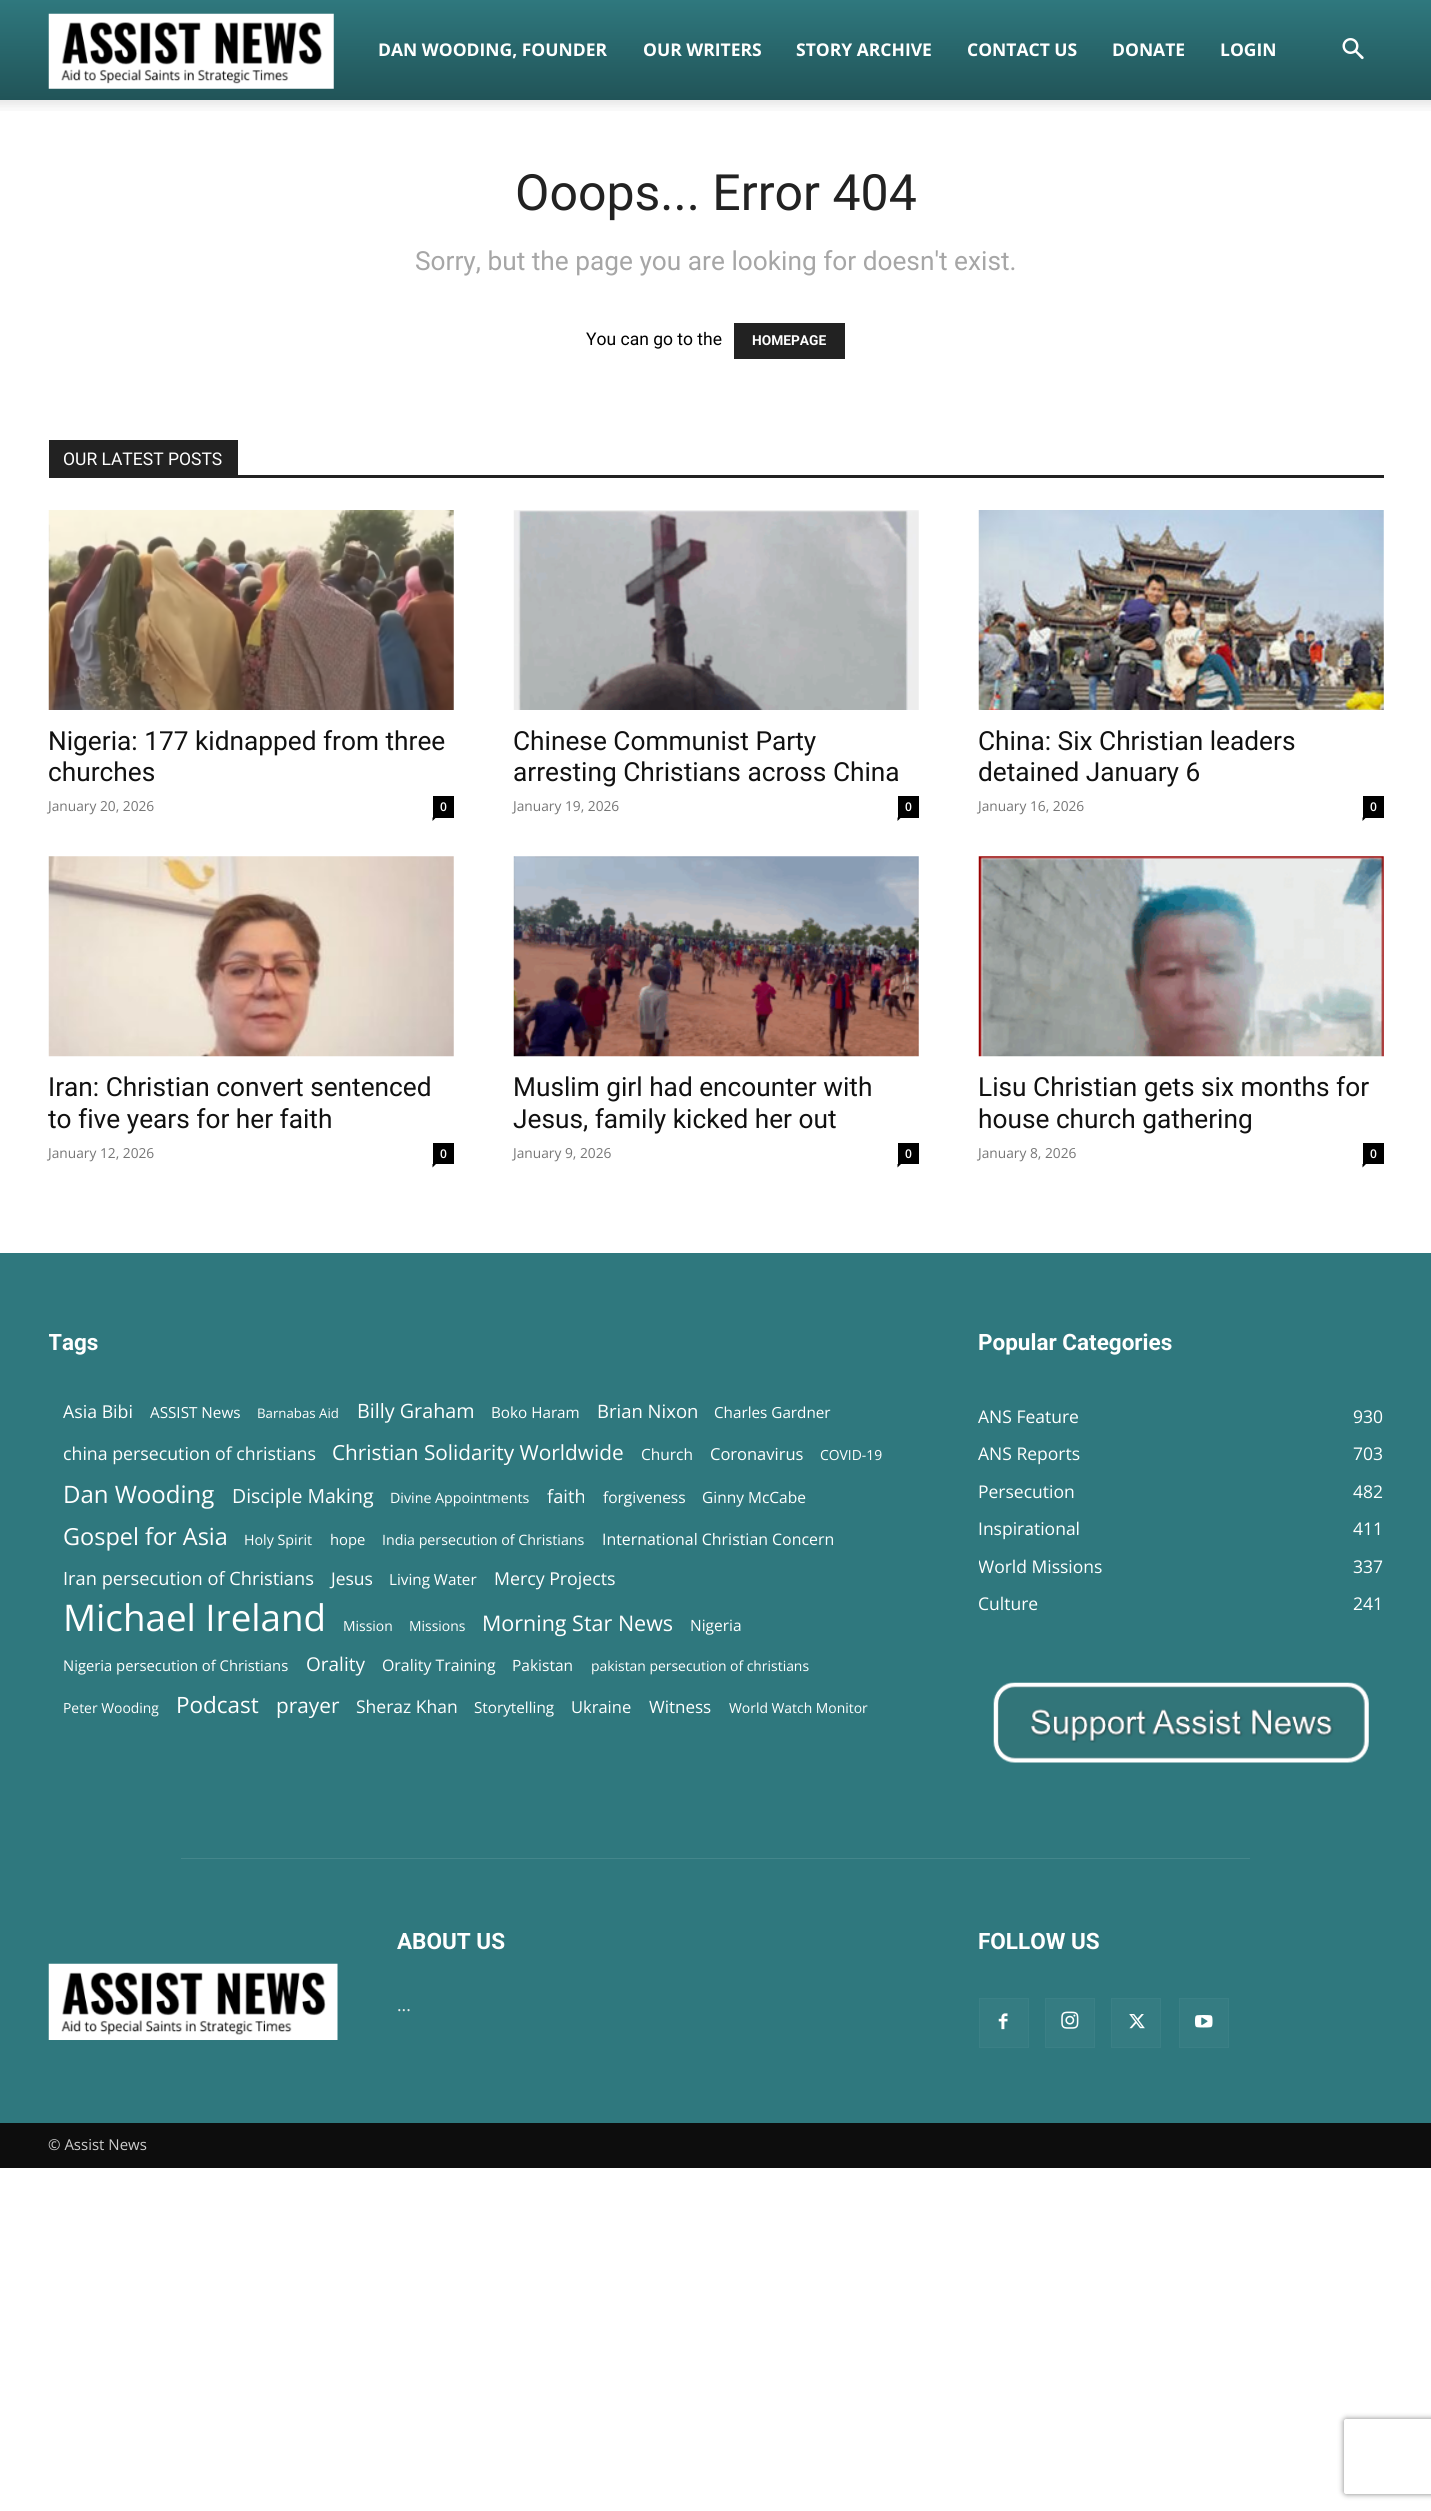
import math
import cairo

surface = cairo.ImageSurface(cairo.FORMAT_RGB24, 1431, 2511)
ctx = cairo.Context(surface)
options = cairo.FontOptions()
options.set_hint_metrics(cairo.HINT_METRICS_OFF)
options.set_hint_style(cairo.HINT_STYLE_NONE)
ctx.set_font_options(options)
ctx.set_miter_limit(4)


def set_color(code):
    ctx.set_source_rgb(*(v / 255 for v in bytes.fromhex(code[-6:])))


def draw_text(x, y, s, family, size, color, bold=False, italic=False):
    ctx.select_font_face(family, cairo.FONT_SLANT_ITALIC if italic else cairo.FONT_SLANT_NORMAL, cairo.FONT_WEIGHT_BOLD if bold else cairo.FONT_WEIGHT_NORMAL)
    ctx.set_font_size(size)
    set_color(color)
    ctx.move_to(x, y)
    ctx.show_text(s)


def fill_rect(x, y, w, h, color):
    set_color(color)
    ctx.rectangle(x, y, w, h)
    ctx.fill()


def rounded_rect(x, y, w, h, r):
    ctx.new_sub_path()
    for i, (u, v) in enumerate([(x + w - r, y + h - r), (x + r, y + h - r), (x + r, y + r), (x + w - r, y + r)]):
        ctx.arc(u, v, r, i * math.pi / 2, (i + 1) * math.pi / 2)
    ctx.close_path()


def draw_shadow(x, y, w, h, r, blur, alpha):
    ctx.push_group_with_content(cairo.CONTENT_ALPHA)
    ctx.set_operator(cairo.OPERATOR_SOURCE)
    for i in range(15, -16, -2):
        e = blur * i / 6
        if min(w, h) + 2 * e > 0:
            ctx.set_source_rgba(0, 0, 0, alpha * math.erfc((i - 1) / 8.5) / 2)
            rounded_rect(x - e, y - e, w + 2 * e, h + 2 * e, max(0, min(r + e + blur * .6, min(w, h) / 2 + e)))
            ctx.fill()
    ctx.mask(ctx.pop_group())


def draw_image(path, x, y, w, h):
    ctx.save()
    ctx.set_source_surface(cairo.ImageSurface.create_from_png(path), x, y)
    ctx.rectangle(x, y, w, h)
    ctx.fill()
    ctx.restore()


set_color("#ffffff")
ctx.paint()
gradient = cairo.LinearGradient(716, 0, 716, 100)
gradient.add_color_stop_rgba(0, 0.184, 0.471, 0.494, 1)
gradient.add_color_stop_rgba(1, 0.129, 0.329, 0.345, 1)
ctx.set_source(gradient)
ctx.rectangle(0, 0, 1431, 100)
ctx.fill()
draw_image("assets/img1.png", 48, 13, 286, 76)
draw_text(378, 56, "DAN WOODING, FOUNDER", "Open Sans", 17.5, "#ffffff", bold=True)
draw_text(643, 56, "OUR WRITERS", "Open Sans", 17.5, "#ffffff", bold=True)
draw_text(796, 56, "STORY ARCHIVE", "Open Sans", 17.5, "#ffffff", bold=True)
draw_text(967, 56, "CONTACT US", "Open Sans", 17.5, "#ffffff", bold=True)
draw_text(1112, 56, "DONATE", "Open Sans", 17.5, "#ffffff", bold=True)
draw_text(1220, 56, "LOGIN", "Open Sans", 17.5, "#ffffff", bold=True)
draw_image("assets/img2.png", 1342, 38, 22, 22)
draw_image("assets/img3.png", 0, 100, 1431, 11)
draw_text(515, 210, "Ooops... Error 404", "Roboto", 50, "#222222")
draw_text(415, 270, "Sorry, but the page you are looking for doesn't exist.", "Roboto", 26.25, "#a6a6a6")
draw_text(586, 345, "You can go to the", "Roboto", 17.5, "#000000")
fill_rect(734, 323, 111, 36, "#222222")
draw_text(752, 345, "HOMEPAGE", "Roboto", 13.75, "#ffffff", bold=True)
fill_rect(49, 475, 1335, 3, "#222222")
fill_rect(49, 440, 189, 35, "#222222")
draw_text(63, 465, "OUR LATEST POSTS", "Roboto", 17.5, "#ffffff")
draw_image("assets/img4.png", 48, 510, 406, 200)
draw_text(48, 750, "Nigeria: 177 kidnapped from three", "Roboto", 26.25, "#111111")
draw_text(48, 781, "churches", "Roboto", 26.25, "#111111")
draw_text(48, 811, "January 20, 2026", "Open Sans", 13.75, "#767676")
fill_rect(433, 796, 21, 22, "#000000")
draw_text(440, 811, "0", "Open Sans SemiBold", 12, "#ffffff")
set_color("#000000")
ctx.new_path()
ctx.move_to(432.5, 817.5)
ctx.line_to(436, 817.5)
ctx.line_to(432.5, 821)
ctx.close_path()
ctx.fill()
draw_image("assets/img5.png", 513, 510, 406, 200)
draw_text(513, 750, "Chinese Communist Party", "Roboto", 26.25, "#111111")
draw_text(513, 781, "arresting Christians across China", "Roboto", 26.25, "#111111")
draw_text(513, 811, "January 19, 2026", "Open Sans", 13.75, "#767676")
fill_rect(898, 796, 21, 22, "#000000")
draw_text(905, 811, "0", "Open Sans SemiBold", 12, "#ffffff")
set_color("#000000")
ctx.new_path()
ctx.move_to(897.5, 817.5)
ctx.line_to(901, 817.5)
ctx.line_to(897.5, 821)
ctx.close_path()
ctx.fill()
draw_image("assets/img6.png", 978, 510, 406, 200)
draw_text(978, 750, "China: Six Christian leaders", "Roboto", 26.25, "#111111")
draw_text(978, 781, "detained January 6", "Roboto", 26.25, "#111111")
draw_text(978, 811, "January 16, 2026", "Open Sans", 13.75, "#767676")
fill_rect(1363, 796, 21, 22, "#000000")
draw_text(1370, 811, "0", "Open Sans SemiBold", 12, "#ffffff")
set_color("#000000")
ctx.new_path()
ctx.move_to(1362.5, 817.5)
ctx.line_to(1366, 817.5)
ctx.line_to(1362.5, 821)
ctx.close_path()
ctx.fill()
draw_image("assets/img7.png", 48, 856, 406, 201)
draw_text(48, 1096, "Iran: Christian convert sentenced", "Roboto", 26.25, "#111111")
draw_text(48, 1128, "to five years for her faith", "Roboto", 26.25, "#111111")
draw_text(48, 1158, "January 12, 2026", "Open Sans", 13.75, "#767676")
fill_rect(433, 1143, 21, 21, "#000000")
draw_text(440, 1158, "0", "Open Sans SemiBold", 12, "#ffffff")
set_color("#000000")
ctx.new_path()
ctx.move_to(432.5, 1164)
ctx.line_to(436, 1164)
ctx.line_to(432.5, 1167.5)
ctx.close_path()
ctx.fill()
draw_image("assets/img8.png", 513, 856, 406, 201)
draw_text(513, 1096, "Muslim girl had encounter with", "Roboto", 26.25, "#111111")
draw_text(513, 1128, "Jesus, family kicked her out", "Roboto", 26.25, "#111111")
draw_text(513, 1158, "January 9, 2026", "Open Sans", 13.75, "#767676")
fill_rect(898, 1143, 21, 21, "#000000")
draw_text(905, 1158, "0", "Open Sans SemiBold", 12, "#ffffff")
set_color("#000000")
ctx.new_path()
ctx.move_to(897.5, 1164)
ctx.line_to(901, 1164)
ctx.line_to(897.5, 1167.5)
ctx.close_path()
ctx.fill()
draw_image("assets/img9.png", 978, 856, 406, 201)
draw_text(978, 1096, "Lisu Christian gets six months for", "Roboto", 26.25, "#111111")
draw_text(978, 1128, "house church gathering", "Roboto", 26.25, "#111111")
draw_text(978, 1158, "January 8, 2026", "Open Sans", 13.75, "#767676")
fill_rect(1363, 1143, 21, 21, "#000000")
draw_text(1370, 1158, "0", "Open Sans SemiBold", 12, "#ffffff")
set_color("#000000")
ctx.new_path()
ctx.move_to(1362.5, 1164)
ctx.line_to(1366, 1164)
ctx.line_to(1362.5, 1167.5)
ctx.close_path()
ctx.fill()
fill_rect(0, 1253, 1431, 870, "#2f787e")
ctx.save()
ctx.rectangle(49, 1321, 870, 412)
ctx.clip()
draw_text(48, 1350, "Tags", "Roboto", 22.5, "#ffffff", bold=True)
ctx.restore()
draw_text(63, 1418, "Asia Bibi", "Open Sans", 17.75, "#ffffff")
draw_text(150, 1418, "ASSIST News", "Open Sans", 15.25, "#ffffff")
draw_text(257, 1418, "Barnabas Aid", "Open Sans", 13.25, "#ffffff")
draw_text(357, 1418, "Billy Graham", "Open Sans", 19.75, "#ffffff")
draw_text(491, 1418, "Boko Haram", "Open Sans", 15.25, "#ffffff")
draw_text(597, 1418, "Brian Nixon", "Open Sans", 18.5, "#ffffff")
draw_text(714, 1418, "Charles Gardner", "Open Sans", 15.25, "#ffffff")
draw_text(63, 1460, "china persecution of christians", "Open Sans", 17.75, "#ffffff")
draw_text(332, 1460, "Christian Solidarity Worldwide", "Open Sans", 20.8, "#ffffff")
draw_text(641, 1460, "Church", "Open Sans", 15.5, "#ffffff")
draw_text(710, 1460, "Coronavirus", "Open Sans", 16.5, "#ffffff")
draw_text(820, 1460, "COVID-19", "Open Sans", 13.9, "#ffffff")
draw_text(63, 1503, "Dan Wooding", "Open Sans", 24, "#ffffff")
draw_text(232, 1503, "Disciple Making", "Open Sans", 19.5, "#ffffff")
draw_text(390, 1503, "Divine Appointments", "Open Sans", 14.25, "#ffffff")
draw_text(547, 1503, "faith", "Open Sans", 18.25, "#ffffff")
draw_text(603, 1503, "forgiveness", "Open Sans", 15.5, "#ffffff")
draw_text(702, 1503, "Ginny McCabe", "Open Sans", 15.5, "#ffffff")
draw_text(63, 1545, "Gospel for Asia", "Open Sans", 23.5, "#ffffff")
draw_text(244, 1545, "Holy Spirit", "Open Sans", 14.25, "#ffffff")
draw_text(330, 1545, "hope", "Open Sans", 14.8, "#ffffff")
draw_text(382, 1545, "India persecution of Christians", "Open Sans", 14.25, "#ffffff")
draw_text(602, 1545, "International Christian Concern", "Open Sans", 15.9, "#ffffff")
draw_text(63, 1585, "Iran persecution of Christians", "Open Sans", 18.25, "#ffffff")
draw_text(331, 1585, "Jesus", "Open Sans", 17.5, "#ffffff")
draw_text(389, 1585, "Living Water", "Open Sans", 15.25, "#ffffff")
draw_text(494, 1585, "Mercy Projects", "Open Sans", 17.75, "#ffffff")
draw_text(63, 1631, "Michael Ireland", "Open Sans", 36.75, "#ffffff")
draw_text(343, 1631, "Mission", "Open Sans", 13.9, "#ffffff")
draw_text(409, 1631, "Missions", "Open Sans", 13.9, "#ffffff")
draw_text(482, 1631, "Morning Star News", "Open Sans", 21.5, "#ffffff")
draw_text(690, 1631, "Nigeria", "Open Sans", 15.5, "#ffffff")
draw_text(63, 1671, "Nigeria persecution of Christians", "Open Sans", 14.8, "#ffffff")
draw_text(306, 1671, "Orality", "Open Sans", 19, "#ffffff")
draw_text(382, 1671, "Orality Training", "Open Sans", 15.9, "#ffffff")
draw_text(512, 1671, "Pakistan", "Open Sans", 15.5, "#ffffff")
draw_text(591, 1671, "pakistan persecution of christians", "Open Sans", 13.9, "#ffffff")
draw_text(63, 1713, "Peter Wooding", "Open Sans", 13.9, "#ffffff")
draw_text(176, 1713, "Podcast", "Open Sans", 22.5, "#ffffff")
draw_text(276, 1713, "prayer", "Open Sans", 20.8, "#ffffff")
draw_text(356, 1713, "Sheraz Khan", "Open Sans", 17.5, "#ffffff")
draw_text(474, 1713, "Storytelling", "Open Sans", 15.25, "#ffffff")
draw_text(571, 1713, "Ukraine", "Open Sans", 16.5, "#ffffff")
draw_text(649, 1713, "Witness", "Open Sans", 17, "#ffffff")
draw_text(729, 1713, "World Watch Monitor", "Open Sans", 13.9, "#ffffff")
draw_text(978, 1350, "Popular Categories", "Roboto", 22.5, "#ffffff", bold=True)
draw_text(978, 1423, "ANS Feature", "Open Sans", 17.5, "#ffffff")
draw_text(1353, 1423, "930", "Open Sans", 17.5, "#ffffff")
draw_text(978, 1460, "ANS Reports", "Open Sans", 17.5, "#ffffff")
draw_text(1353, 1460, "703", "Open Sans", 17.5, "#ffffff")
draw_text(978, 1498, "Persecution", "Open Sans", 17.5, "#ffffff")
draw_text(1353, 1498, "482", "Open Sans", 17.5, "#ffffff")
draw_text(978, 1535, "Inspirational", "Open Sans", 17.5, "#ffffff")
draw_text(1353, 1535, "411", "Open Sans", 17.5, "#ffffff")
ctx.save()
ctx.rectangle(979, 1321, 405, 302)
ctx.clip()
draw_text(978, 1573, "World Missions", "Open Sans", 17.5, "#ffffff")
ctx.restore()
draw_text(1353, 1573, "337", "Open Sans", 17.5, "#ffffff")
draw_text(978, 1610, "Culture", "Open Sans", 17.5, "#ffffff")
draw_text(1353, 1610, "241", "Open Sans", 17.5, "#ffffff")
draw_image("assets/img10.png", 993, 1682, 376, 81)
fill_rect(181, 1858, 1069, 1, "#44868b")
draw_text(397, 1949, "ABOUT US", "Roboto", 22.5, "#ffffff", bold=True)
draw_text(397, 2011, "...", "Open Sans", 17.5, "#eaeaea")
draw_text(978, 1949, "FOLLOW US", "Roboto", 22.5, "#ffffff", bold=True)
fill_rect(980, 1999, 48, 48, "#357c82")
draw_image("assets/img11.png", 998, 2013, 10, 17)
ctx.rectangle(979.5, 1998.5, 49, 49)
set_color("#3b8086")
ctx.set_line_width(1)
ctx.stroke()
fill_rect(1046, 1999, 48, 48, "#357c82")
draw_image("assets/img12.png", 1061, 2011, 18, 18)
ctx.rectangle(1045.5, 1998.5, 49, 49)
set_color("#3b8086")
ctx.stroke()
fill_rect(1112, 1999, 48, 48, "#357c82")
draw_image("assets/img13.png", 1129, 2014, 16, 15)
ctx.rectangle(1111.5, 1998.5, 49, 49)
set_color("#3b8086")
ctx.stroke()
fill_rect(1180, 1999, 48, 48, "#357c82")
draw_image("assets/img14.png", 1195, 2015, 18, 13)
ctx.rectangle(1179.5, 1998.5, 49, 49)
set_color("#3b8086")
ctx.stroke()
draw_image("assets/img15.png", 48, 1963, 290, 77)
fill_rect(0, 2123, 1431, 45, "#0d0d0d")
draw_text(48, 2150, "© Assist News", "Open Sans", 15, "#cccccc")
ctx.save()
ctx.set_fill_rule(cairo.FILL_RULE_EVEN_ODD)
ctx.new_path()
ctx.move_to(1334, 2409)
ctx.line_to(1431, 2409)
ctx.line_to(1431, 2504)
ctx.line_to(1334, 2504)
ctx.close_path()
ctx.move_to(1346.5, 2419)
ctx.line_to(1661.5, 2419)
ctx.curve_to(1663, 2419, 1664, 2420, 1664, 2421.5)
ctx.line_to(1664, 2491.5)
ctx.curve_to(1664, 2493, 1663, 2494, 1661.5, 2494)
ctx.line_to(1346.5, 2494)
ctx.curve_to(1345, 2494, 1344, 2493, 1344, 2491.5)
ctx.line_to(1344, 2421.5)
ctx.curve_to(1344, 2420, 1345, 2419, 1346.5, 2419)
ctx.close_path()
ctx.clip()
set_color("#808080")
draw_shadow(1344, 2419, 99, 75, 2.5, 3, 1)
ctx.restore()
surface.write_to_png("output.png")
